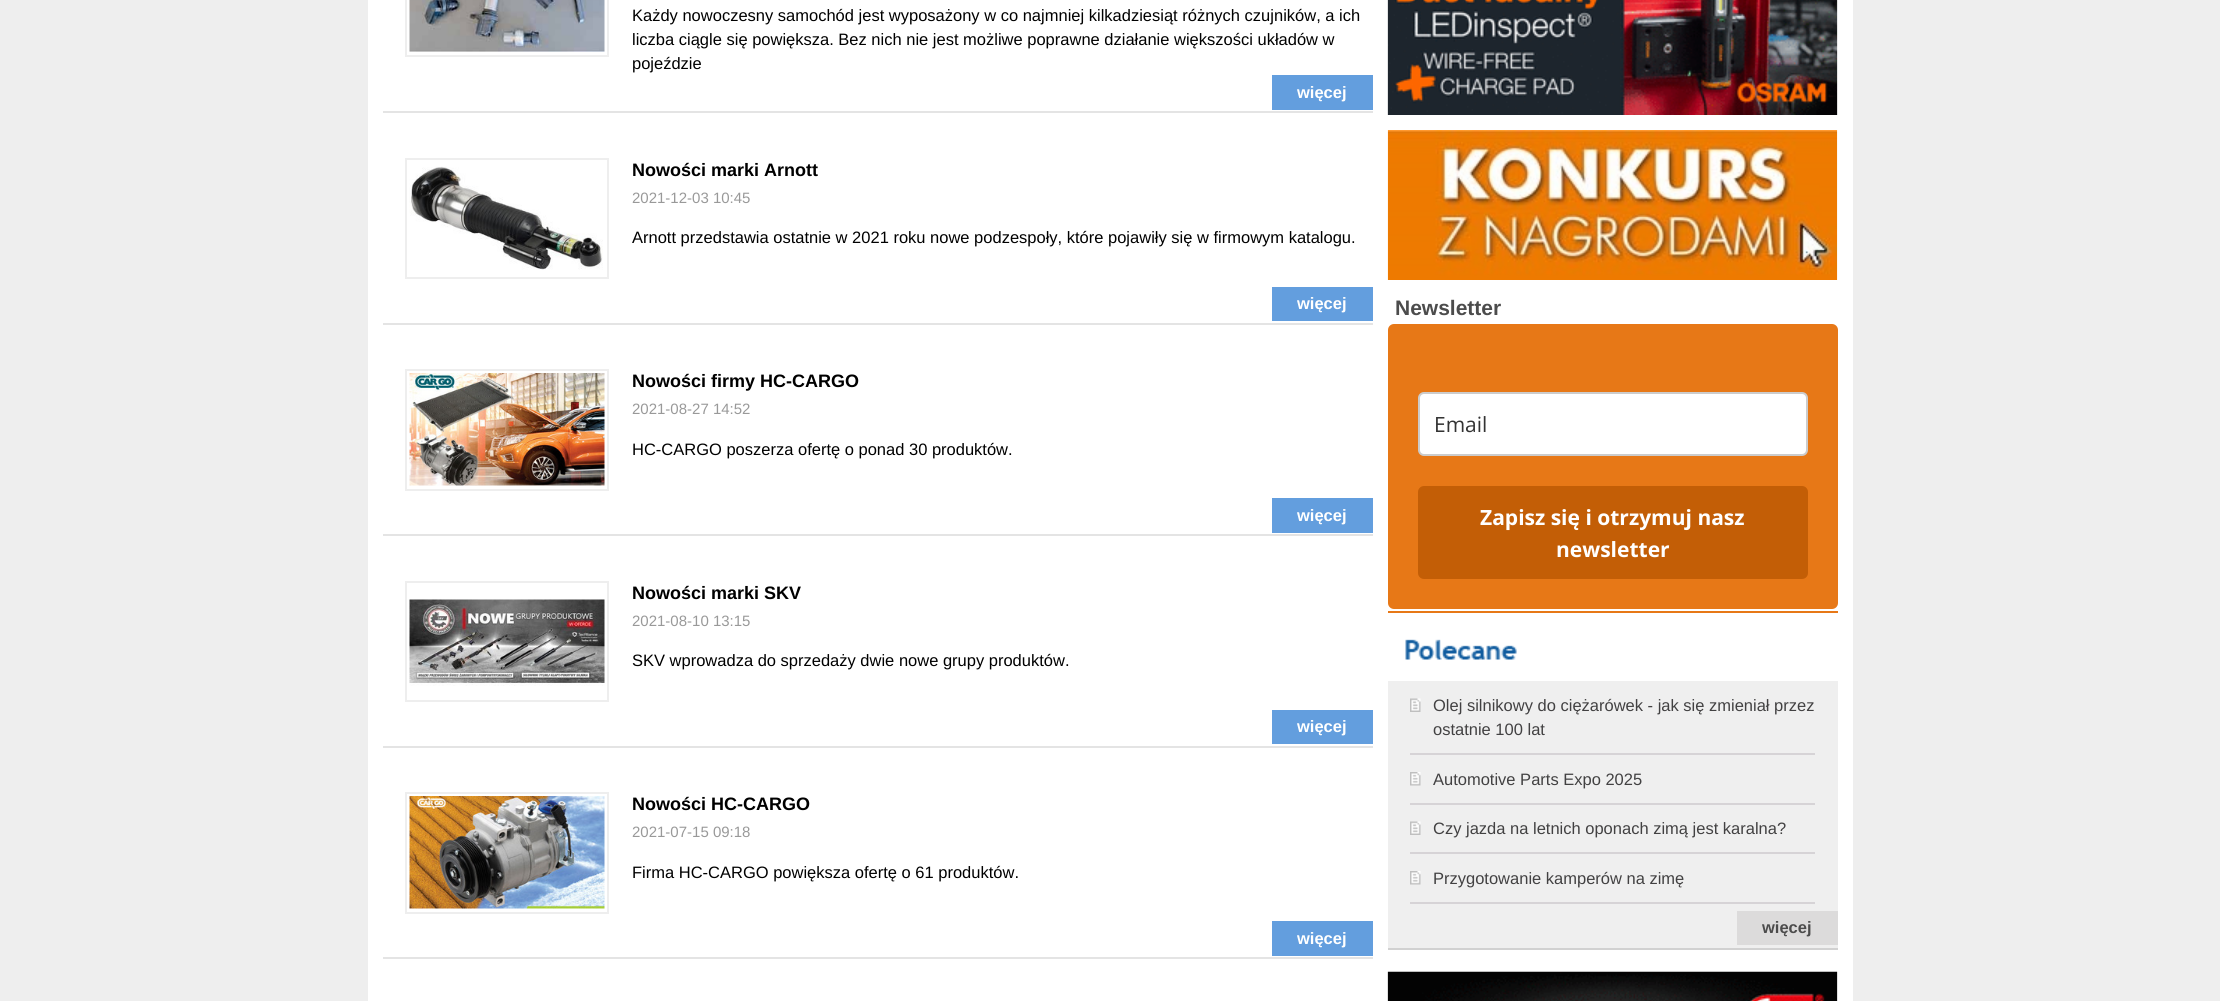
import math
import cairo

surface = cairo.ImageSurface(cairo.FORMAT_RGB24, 2220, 1001)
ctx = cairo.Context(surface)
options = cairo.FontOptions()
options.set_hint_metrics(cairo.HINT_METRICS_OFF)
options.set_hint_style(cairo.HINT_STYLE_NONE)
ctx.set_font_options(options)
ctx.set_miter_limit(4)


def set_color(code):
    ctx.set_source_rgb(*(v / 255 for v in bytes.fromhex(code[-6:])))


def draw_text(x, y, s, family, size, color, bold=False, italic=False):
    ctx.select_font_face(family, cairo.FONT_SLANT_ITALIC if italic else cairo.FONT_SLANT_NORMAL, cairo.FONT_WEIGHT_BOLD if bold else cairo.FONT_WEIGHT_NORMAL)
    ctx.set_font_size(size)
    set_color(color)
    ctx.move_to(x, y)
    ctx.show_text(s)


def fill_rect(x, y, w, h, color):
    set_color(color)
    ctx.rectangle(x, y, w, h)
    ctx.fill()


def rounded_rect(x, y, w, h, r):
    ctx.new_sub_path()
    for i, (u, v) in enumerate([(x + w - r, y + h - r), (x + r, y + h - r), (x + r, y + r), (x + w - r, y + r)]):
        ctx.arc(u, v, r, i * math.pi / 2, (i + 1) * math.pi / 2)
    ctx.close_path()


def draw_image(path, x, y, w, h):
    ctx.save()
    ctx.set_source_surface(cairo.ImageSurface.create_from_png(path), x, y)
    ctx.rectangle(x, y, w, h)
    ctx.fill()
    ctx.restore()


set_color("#eeeeee")
ctx.paint()
fill_rect(368, 0, 1485, 1001, "#ffffff")
fill_rect(383, 111, 990, 2, "#e4e4e4")
ctx.rectangle(406, -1, 202, 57)
set_color("#eeeeee")
ctx.stroke()
draw_image("assets/img1.png", 409, 0, 196, 52)
draw_text(632, 21, "Każdy nowoczesny samochód jest wyposażony w co najmniej kilkadziesiąt różnych czujników, a ich", "Liberation Sans", 16.5, "#000000")
draw_text(632, 45, "liczba ciągle się powiększa. Bez nich nie jest możliwe poprawne działanie większości układów w", "Liberation Sans", 16.5, "#000000")
draw_text(632, 69, "pojeździe", "Liberation Sans", 16.5, "#000000")
fill_rect(1272, 75, 101, 35, "#639ede")
draw_text(1297, 98, "więcej", "Liberation Sans", 16.5, "#ffffff", bold=True)
fill_rect(383, 323, 990, 2, "#e4e4e4")
ctx.rectangle(406, 159, 202, 119)
set_color("#eeeeee")
ctx.stroke()
draw_image("assets/img2.png", 409, 166, 194, 104)
draw_text(632, 176, "Nowości marki Arnott", "Liberation Sans", 18, "#000000", bold=True)
draw_text(632, 203, "2021-12-03 10:45", "Liberation Sans", 15, "#999999")
draw_text(632, 243, "Arnott przedstawia ostatnie w 2021 roku nowe podzespoły, które pojawiły się w firmowym katalogu.", "Liberation Sans", 16.5, "#000000")
fill_rect(1272, 287, 101, 34, "#639ede")
draw_text(1297, 309, "więcej", "Liberation Sans", 16.5, "#ffffff", bold=True)
fill_rect(383, 534, 990, 2, "#e4e4e4")
ctx.rectangle(406, 370, 202, 120)
set_color("#eeeeee")
ctx.stroke()
draw_image("assets/img3.png", 409, 373, 196, 113)
draw_text(632, 387, "Nowości firmy HC-CARGO", "Liberation Sans", 18, "#000000", bold=True)
draw_text(632, 414, "2021-08-27 14:52", "Liberation Sans", 15, "#999999")
draw_text(632, 455, "HC-CARGO poszerza ofertę o ponad 30 produktów.", "Liberation Sans", 16.5, "#000000")
fill_rect(1272, 498, 101, 35, "#639ede")
draw_text(1297, 521, "więcej", "Liberation Sans", 16.5, "#ffffff", bold=True)
fill_rect(383, 746, 990, 2, "#e4e4e4")
ctx.rectangle(406, 582, 202, 119)
set_color("#eeeeee")
ctx.stroke()
draw_image("assets/img4.png", 409, 599, 196, 87)
draw_text(632, 599, "Nowości marki SKV", "Liberation Sans", 18, "#000000", bold=True)
draw_text(632, 626, "2021-08-10 13:15", "Liberation Sans", 15, "#999999")
draw_text(632, 666, "SKV wprowadza do sprzedaży dwie nowe grupy produktów.", "Liberation Sans", 16.5, "#000000")
fill_rect(1272, 710, 101, 34, "#639ede")
draw_text(1297, 732, "więcej", "Liberation Sans", 16.5, "#ffffff", bold=True)
fill_rect(383, 957, 990, 2, "#e4e4e4")
ctx.rectangle(406, 793, 202, 120)
set_color("#eeeeee")
ctx.stroke()
draw_image("assets/img5.png", 409, 796, 196, 113)
draw_text(632, 810, "Nowości HC-CARGO", "Liberation Sans", 18, "#000000", bold=True)
draw_text(632, 837, "2021-07-15 09:18", "Liberation Sans", 15, "#999999")
draw_text(632, 878, "Firma HC-CARGO powiększa ofertę o 61 produktów.", "Liberation Sans", 16.5, "#000000")
fill_rect(1272, 921, 101, 35, "#639ede")
draw_text(1297, 944, "więcej", "Liberation Sans", 16.5, "#ffffff", bold=True)
draw_image("assets/img6.png", 1387, 0, 451, 115)
draw_image("assets/img7.png", 1387, 130, 451, 150)
fill_rect(1388, 611, 450, 2, "#e77817")
draw_text(1395, 315, "Newsletter", "Liberation Sans", 21, "#4c4c4c", bold=True)
set_color("#e77817")
rounded_rect(1388, 324, 450, 285, 6)
ctx.fill()
set_color("#ffffff")
rounded_rect(1419, 393, 388, 62, 5)
ctx.fill_preserve()
set_color("#cccccc")
ctx.stroke()
draw_text(1434, 432, "Email", "Open Sans", 21, "#333333")
set_color("#c35e06")
rounded_rect(1418, 486, 390, 93, 6)
ctx.fill()
draw_text(1480, 525, "Zapisz się i otrzymuj nasz", "Open Sans", 21, "#ffffff", bold=True)
draw_text(1556, 557, "newsletter", "Open Sans", 21, "#ffffff", bold=True)
draw_image("assets/img8.png", 1405, 639, 112, 21)
fill_rect(1388, 681, 450, 267, "#efefef")
fill_rect(1388, 948, 450, 2, "#d1d1d1")
draw_image("assets/img9.png", 1410, 698, 11, 14)
fill_rect(1410, 753, 405, 2, "#d6d3d6")
draw_text(1433, 711, "Olej silnikowy do ciężarówek - jak się zmieniał przez", "Liberation Sans", 16.5, "#424142")
draw_text(1433, 735, "ostatnie 100 lat", "Liberation Sans", 16.5, "#424142")
draw_image("assets/img10.png", 1410, 772, 11, 14)
fill_rect(1410, 803, 405, 2, "#d6d3d6")
draw_text(1433, 785, "Automotive Parts Expo 2025", "Liberation Sans", 16.5, "#424142")
draw_image("assets/img9.png", 1410, 821, 11, 14)
fill_rect(1410, 852, 405, 2, "#d6d3d6")
draw_text(1433, 834, "Czy jazda na letnich oponach zimą jest karalna?", "Liberation Sans", 16.5, "#424142")
draw_image("assets/img10.png", 1410, 871, 11, 14)
fill_rect(1410, 902, 405, 2, "#d6d3d6")
draw_text(1433, 884, "Przygotowanie kamperów na zimę", "Liberation Sans", 16.5, "#424142")
fill_rect(1737, 911, 101, 34, "#dcdbdb")
draw_text(1762, 933, "więcej", "Liberation Sans", 16.5, "#4c4c4c", bold=True)
draw_image("assets/img11.png", 1387, 971, 451, 30)
surface.write_to_png("output.png")
